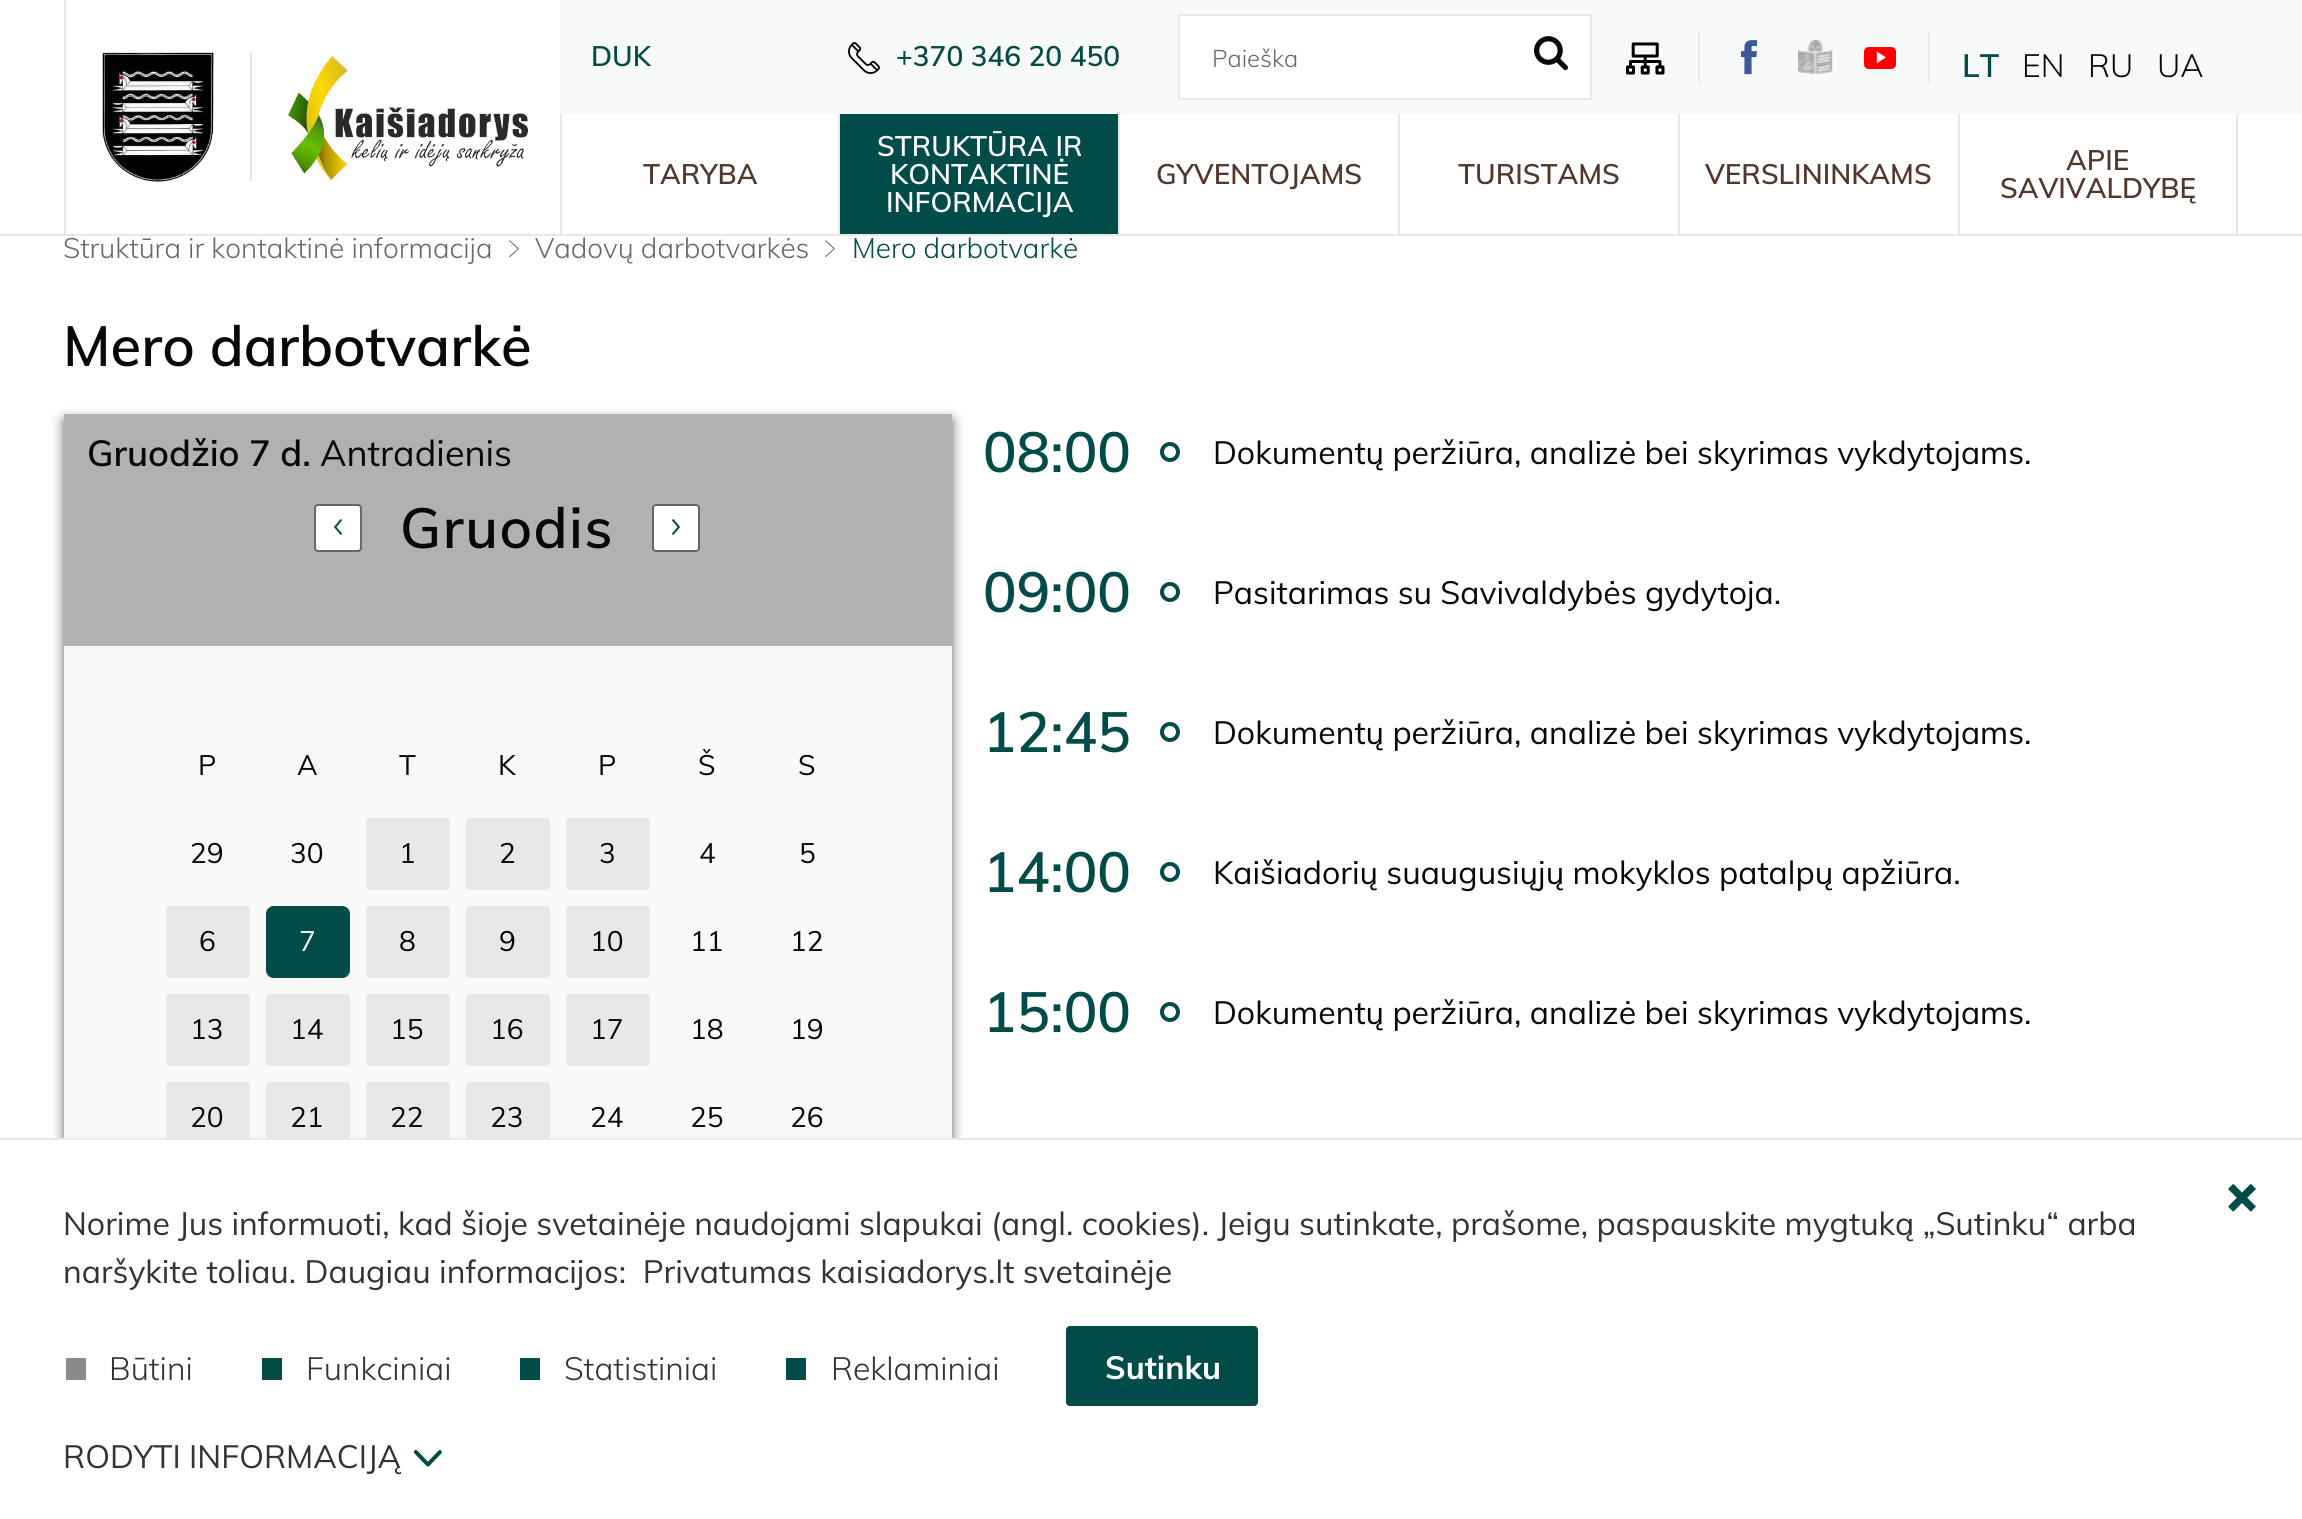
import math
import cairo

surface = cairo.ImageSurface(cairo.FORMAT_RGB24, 2302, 1519)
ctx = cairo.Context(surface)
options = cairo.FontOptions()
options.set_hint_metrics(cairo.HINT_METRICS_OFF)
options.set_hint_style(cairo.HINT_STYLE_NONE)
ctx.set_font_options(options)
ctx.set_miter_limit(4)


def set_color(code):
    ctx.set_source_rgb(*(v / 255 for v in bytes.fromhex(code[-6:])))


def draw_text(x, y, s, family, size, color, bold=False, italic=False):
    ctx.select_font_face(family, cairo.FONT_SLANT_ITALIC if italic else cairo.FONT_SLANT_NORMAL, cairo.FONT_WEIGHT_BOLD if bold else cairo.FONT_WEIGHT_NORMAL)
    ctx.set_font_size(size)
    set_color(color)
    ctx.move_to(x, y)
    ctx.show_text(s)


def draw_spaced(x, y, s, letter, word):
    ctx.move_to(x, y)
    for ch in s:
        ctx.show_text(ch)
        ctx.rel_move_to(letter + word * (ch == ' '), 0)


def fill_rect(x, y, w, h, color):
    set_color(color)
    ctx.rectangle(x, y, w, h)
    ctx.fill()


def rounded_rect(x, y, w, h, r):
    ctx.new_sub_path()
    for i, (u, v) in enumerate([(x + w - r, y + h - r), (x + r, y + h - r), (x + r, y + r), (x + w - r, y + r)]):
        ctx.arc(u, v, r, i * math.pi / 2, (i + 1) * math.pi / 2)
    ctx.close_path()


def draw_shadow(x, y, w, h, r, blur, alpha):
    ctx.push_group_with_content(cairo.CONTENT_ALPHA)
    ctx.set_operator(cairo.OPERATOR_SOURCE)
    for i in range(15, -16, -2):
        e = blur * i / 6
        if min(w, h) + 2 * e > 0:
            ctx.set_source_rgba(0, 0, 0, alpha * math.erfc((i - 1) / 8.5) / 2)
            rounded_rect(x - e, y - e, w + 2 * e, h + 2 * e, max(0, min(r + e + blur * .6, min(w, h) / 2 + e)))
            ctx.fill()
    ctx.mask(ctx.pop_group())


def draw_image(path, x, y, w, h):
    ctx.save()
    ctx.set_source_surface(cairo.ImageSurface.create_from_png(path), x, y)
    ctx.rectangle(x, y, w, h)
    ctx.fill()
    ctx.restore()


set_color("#ffffff")
ctx.paint()
fill_rect(0, 234, 2302, 2, "#e8e8e8")
fill_rect(64, 0, 2, 234, "#e8e8e8")
fill_rect(250, 52, 2, 130, "#e8e8e8")
draw_image("assets/img1.png", 102, 52, 112, 130)
draw_image("assets/img2.png", 288, 56, 240, 124)
fill_rect(560, 0, 1742, 114, "#f8faf9")
draw_text(591, 66, "DUK", "Muli SemiBold", 28, "#014b48")
draw_image("assets/img3.png", 848, 42, 32, 32)
draw_text(896, 66, "+370 346 20 450", "Muli SemiBold", 28, "#014b48")
set_color("#ffffff")
ctx.rectangle(1179, 15, 412, 84)
ctx.fill_preserve()
set_color("#e8e8e8")
ctx.stroke()
draw_text(1212, 67, "Paieška", "Muli Light", 24, "#686868")
draw_image("assets/img4.png", 1534, 36, 34, 35)
fill_rect(1698, 32, 2, 50, "#e8e8e8")
draw_image("assets/img5.png", 1626, 42, 39, 33)
fill_rect(1928, 32, 2, 50, "#e8e8e8")
draw_image("assets/img6.png", 1741, 40, 16, 35)
draw_image("assets/img7.png", 1798, 40, 35, 34)
draw_image("assets/img8.png", 1864, 47, 32, 22)
draw_text(1962, 77, "LT", "Muli SemiBold", 32, "#014b48")
draw_text(2022, 77, "EN", "Muli Light", 32, "#080808")
draw_text(2088, 77, "RU", "Muli Light", 32, "#080808")
draw_text(2157, 77, "UA", "Muli Light", 32, "#080808")
fill_rect(560, 114, 2, 120, "#e8e8e8")
draw_text(643, 184, "TARYBA", "Muli SemiBold", 28, "#52372c")
fill_rect(838, 114, 2, 120, "#e8e8e8")
fill_rect(840, 114, 278, 120, "#014b48")
draw_text(877, 156, "STRUKTŪRA IR", "Muli SemiBold", 28, "#ffffff")
draw_text(890, 184, "KONTAKTINĖ", "Muli SemiBold", 28, "#ffffff")
draw_text(886, 212, "INFORMACIJA", "Muli SemiBold", 28, "#ffffff")
fill_rect(1118, 114, 2, 120, "#e8e8e8")
draw_text(1156, 184, "GYVENTOJAMS", "Muli SemiBold", 28, "#52372c")
fill_rect(1398, 114, 2, 120, "#e8e8e8")
draw_text(1458, 184, "TURISTAMS", "Muli SemiBold", 28, "#52372c")
fill_rect(1678, 114, 2, 120, "#e8e8e8")
draw_text(1705, 184, "VERSLININKAMS", "Muli SemiBold", 28, "#52372c")
fill_rect(2236, 114, 2, 120, "#e8e8e8")
fill_rect(1958, 114, 2, 120, "#e8e8e8")
draw_text(2066, 170, "APIE", "Muli SemiBold", 28, "#52372c")
draw_text(2000, 198, "SAVIVALDYBĘ", "Muli SemiBold", 28, "#52372c")
draw_text(63, 258, "Struktūra ir kontaktinė informacija", "Muli Light", 28, "#686868")
draw_image("assets/img9.png", 509, 240, 10, 18)
draw_text(535, 258, "Vadovų darbotvarkės", "Muli Light", 28, "#686868")
draw_image("assets/img9.png", 825, 240, 10, 18)
draw_text(852, 258, "Mero darbotvarkė", "Muli Light", 28, "#014b48")
draw_text(63, 366, "Mero darbotvarkė", "Muli SemiBold", 56, "#080808")
set_color("#686868")
draw_shadow(64, 420, 888, 876, 0, 6, 1)
fill_rect(64, 646, 888, 492, "#f8faf9")
fill_rect(64, 414, 888, 232, "#b0b1b0")
draw_text(87, 466, "Gruodžio 7 d.", "Muli SemiBold", 36, "#080808")
draw_text(320, 466, "Antradienis", "Muli", 36, "#080808")
set_color("#ffffff")
rounded_rect(315, 505, 46, 46, 3)
ctx.fill_preserve()
set_color("#686868")
ctx.stroke()
draw_image("assets/img10.png", 334, 519, 8, 16)
ctx.select_font_face("Muli SemiBold")
ctx.set_font_size(56)
set_color("#080808")
draw_spaced(400, 548, "Gruodis", 1.5, 0)
set_color("#ffffff")
rounded_rect(653, 505, 46, 46, 3)
ctx.fill_preserve()
set_color("#686868")
ctx.stroke()
draw_image("assets/img11.png", 672, 519, 8, 16)
draw_text(198, 775, "P", "Muli", 28, "#080808")
draw_text(297, 775, "A", "Muli", 28, "#080808")
draw_text(399, 775, "T", "Muli", 28, "#080808")
draw_text(498, 775, "K", "Muli", 28, "#080808")
draw_text(598, 775, "P", "Muli", 28, "#080808")
draw_text(698, 775, "Š", "Muli", 28, "#080808")
draw_text(798, 775, "S", "Muli", 28, "#080808")
draw_text(190, 863, "29", "Muli", 28, "#080808")
draw_text(290, 863, "30", "Muli", 28, "#080808")
set_color("#e8e8e8")
rounded_rect(366, 818, 84, 72, 4)
ctx.fill()
draw_text(399, 863, "1", "Muli", 28, "#080808")
set_color("#e8e8e8")
rounded_rect(466, 818, 84, 72, 4)
ctx.fill()
draw_text(499, 863, "2", "Muli", 28, "#080808")
set_color("#e8e8e8")
rounded_rect(566, 818, 84, 72, 4)
ctx.fill()
draw_text(599, 863, "3", "Muli", 28, "#080808")
draw_text(699, 863, "4", "Muli", 28, "#080808")
draw_text(799, 863, "5", "Muli", 28, "#080808")
set_color("#e8e8e8")
rounded_rect(166, 906, 84, 72, 4)
ctx.fill()
draw_text(199, 951, "6", "Muli", 28, "#080808")
set_color("#e8e8e8")
rounded_rect(266, 906, 84, 72, 4)
ctx.fill()
set_color("#014b48")
rounded_rect(266, 906, 84, 72, 8)
ctx.fill()
draw_text(299, 951, "7", "Muli", 28, "#ffffff")
set_color("#e8e8e8")
rounded_rect(366, 906, 84, 72, 4)
ctx.fill()
draw_text(399, 951, "8", "Muli", 28, "#080808")
set_color("#e8e8e8")
rounded_rect(466, 906, 84, 72, 4)
ctx.fill()
draw_text(499, 951, "9", "Muli", 28, "#080808")
set_color("#e8e8e8")
rounded_rect(566, 906, 84, 72, 4)
ctx.fill()
draw_text(590, 951, "10", "Muli", 28, "#080808")
draw_text(690, 951, "11", "Muli", 28, "#080808")
draw_text(790, 951, "12", "Muli", 28, "#080808")
set_color("#e8e8e8")
rounded_rect(166, 994, 84, 72, 4)
ctx.fill()
draw_text(190, 1039, "13", "Muli", 28, "#080808")
set_color("#e8e8e8")
rounded_rect(266, 994, 84, 72, 4)
ctx.fill()
draw_text(290, 1039, "14", "Muli", 28, "#080808")
set_color("#e8e8e8")
rounded_rect(366, 994, 84, 72, 4)
ctx.fill()
draw_text(390, 1039, "15", "Muli", 28, "#080808")
set_color("#e8e8e8")
rounded_rect(466, 994, 84, 72, 4)
ctx.fill()
draw_text(490, 1039, "16", "Muli", 28, "#080808")
set_color("#e8e8e8")
rounded_rect(566, 994, 84, 72, 4)
ctx.fill()
draw_text(590, 1039, "17", "Muli", 28, "#080808")
draw_text(690, 1039, "18", "Muli", 28, "#080808")
draw_text(790, 1039, "19", "Muli", 28, "#080808")
set_color("#e8e8e8")
rounded_rect(166, 1082, 84, 72, 4)
ctx.fill()
draw_text(190, 1127, "20", "Muli", 28, "#080808")
set_color("#e8e8e8")
rounded_rect(266, 1082, 84, 72, 4)
ctx.fill()
draw_text(290, 1127, "21", "Muli", 28, "#080808")
set_color("#e8e8e8")
rounded_rect(366, 1082, 84, 72, 4)
ctx.fill()
draw_text(390, 1127, "22", "Muli", 28, "#080808")
set_color("#e8e8e8")
rounded_rect(466, 1082, 84, 72, 4)
ctx.fill()
draw_text(490, 1127, "23", "Muli", 28, "#080808")
draw_text(590, 1127, "24", "Muli", 28, "#080808")
draw_text(690, 1127, "25", "Muli", 28, "#080808")
draw_text(790, 1127, "26", "Muli", 28, "#080808")
draw_text(983, 472, "08:00", "Muli SemiBold", 56, "#014b48")
ctx.new_path()
ctx.arc(1170, 452, 8, 0, 2 * math.pi)
ctx.set_line_width(4)
ctx.stroke()
draw_text(1213, 464, "Dokumentų peržiūra, analizė bei skyrimas vykdytojams.", "Muli", 32, "#080808")
draw_text(983, 612, "09:00", "Muli SemiBold", 56, "#014b48")
ctx.new_path()
ctx.arc(1170, 592, 8, 0, 2 * math.pi)
ctx.stroke()
draw_text(1213, 604, "Pasitarimas su Savivaldybės gydytoja.", "Muli", 32, "#080808")
draw_text(983, 752, "12:45", "Muli SemiBold", 56, "#014b48")
ctx.new_path()
ctx.arc(1170, 732, 8, 0, 2 * math.pi)
ctx.stroke()
draw_text(1213, 744, "Dokumentų peržiūra, analizė bei skyrimas vykdytojams.", "Muli", 32, "#080808")
draw_text(983, 892, "14:00", "Muli SemiBold", 56, "#014b48")
ctx.new_path()
ctx.arc(1170, 872, 8, 0, 2 * math.pi)
ctx.stroke()
draw_text(1213, 884, "Kaišiadorių suaugusiųjų mokyklos patalpų apžiūra.", "Muli", 32, "#080808")
draw_text(983, 1032, "15:00", "Muli SemiBold", 56, "#014b48")
ctx.new_path()
ctx.arc(1170, 1012, 8, 0, 2 * math.pi)
ctx.stroke()
draw_text(1213, 1024, "Dokumentų peržiūra, analizė bei skyrimas vykdytojams.", "Muli", 32, "#080808")
fill_rect(51, 1140, 914, 169, "#ffffff")
fill_rect(0, 1138, 2302, 2, "#e8e8e8")
draw_image("assets/img12.png", 2228, 1183, 28, 29)
draw_text(63, 1235, "Norime Jus informuoti, kad šioje svetainėje naudojami slapukai (angl. cookies). Jeigu sutinkate, prašome, paspauskite mygtuką „Sutinku“ arba", "Muli", 32, "#333333")
draw_text(63, 1283, "naršykite toliau. Daugiau informacijos:  Privatumas kaisiadorys.lt svetainėje", "Muli", 32, "#333333")
fill_rect(66, 1358, 20, 22, "#8b8b8b")
draw_text(109, 1380, "Būtini", "Muli Light", 32, "#333333")
fill_rect(262, 1358, 20, 22, "#014b48")
draw_text(306, 1380, "Funkciniai", "Muli Light", 32, "#333333")
fill_rect(520, 1358, 20, 22, "#014b48")
draw_text(564, 1380, "Statistiniai", "Muli Light", 32, "#333333")
fill_rect(786, 1358, 20, 22, "#014b48")
draw_text(831, 1380, "Reklaminiai", "Muli Light", 32, "#333333")
set_color("#014b48")
rounded_rect(1066, 1326, 192, 80, 4)
ctx.fill()
draw_text(1105, 1379, "Sutinku", "Muli", 32, "#ffffff", bold=True)
draw_text(63, 1468, "RODYTI INFORMACIJĄ", "Muli", 32, "#333333")
draw_image("assets/img13.png", 413, 1450, 29, 17)
surface.write_to_png("output.png")
